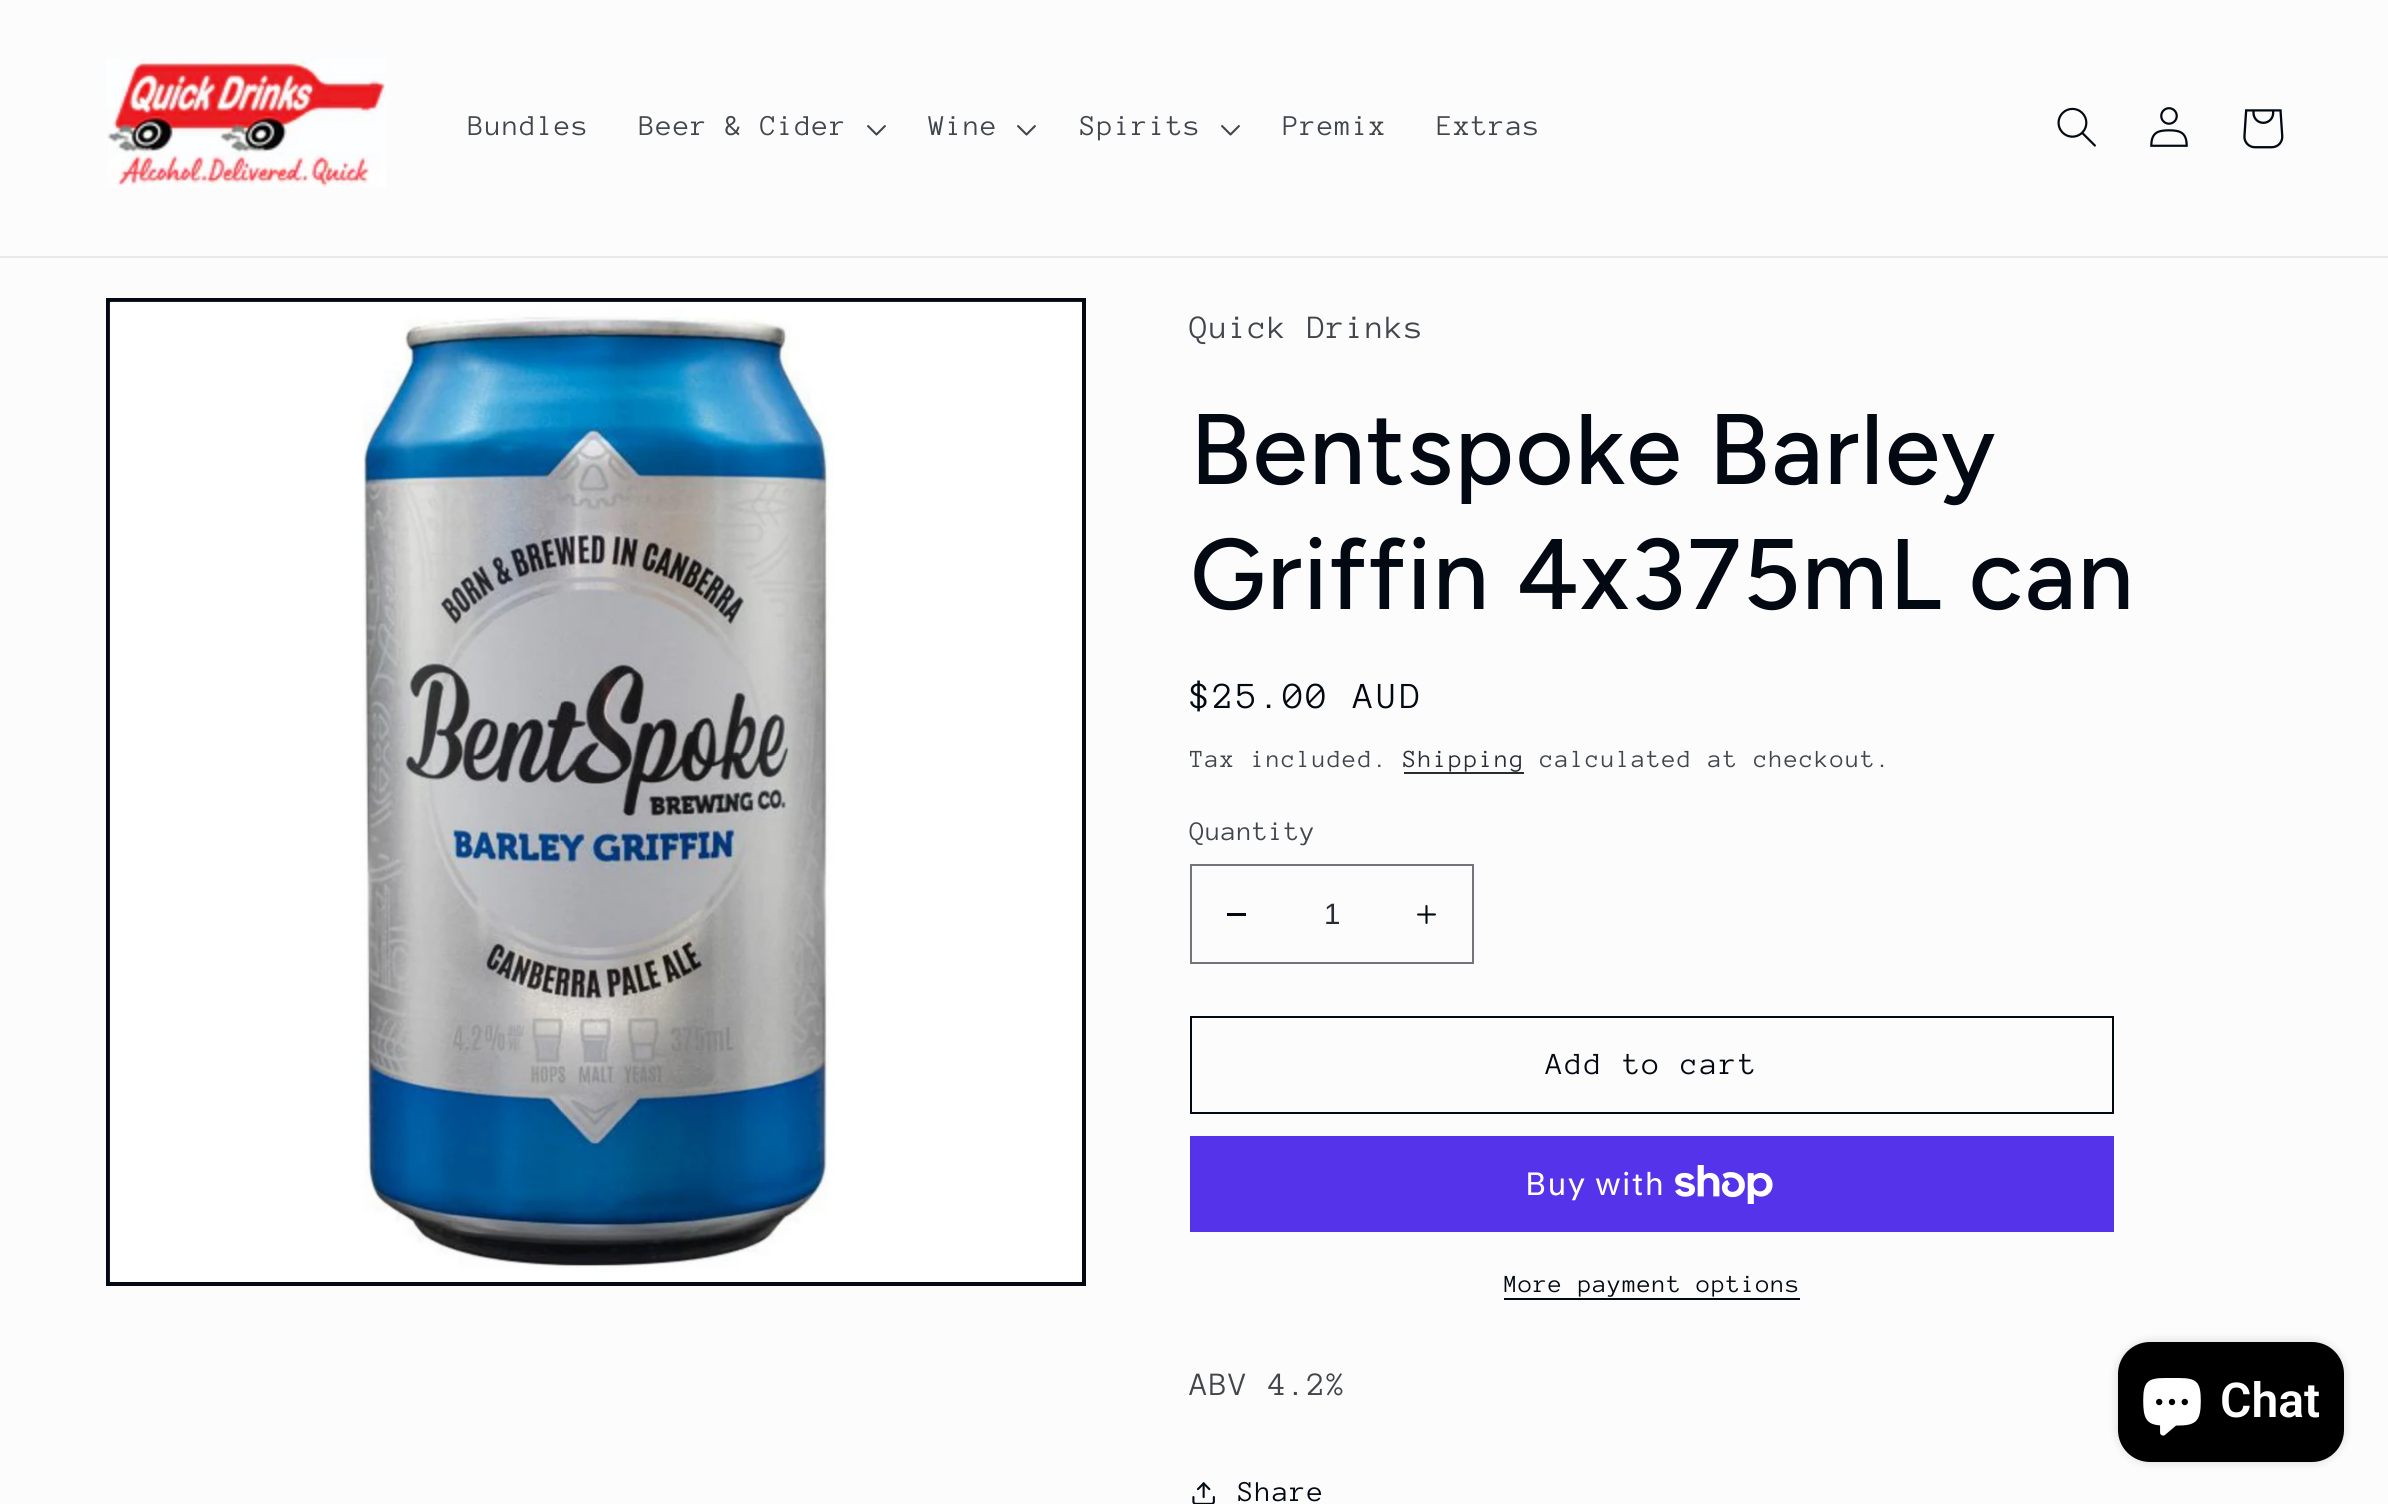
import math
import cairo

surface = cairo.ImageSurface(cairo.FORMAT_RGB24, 2388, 1504)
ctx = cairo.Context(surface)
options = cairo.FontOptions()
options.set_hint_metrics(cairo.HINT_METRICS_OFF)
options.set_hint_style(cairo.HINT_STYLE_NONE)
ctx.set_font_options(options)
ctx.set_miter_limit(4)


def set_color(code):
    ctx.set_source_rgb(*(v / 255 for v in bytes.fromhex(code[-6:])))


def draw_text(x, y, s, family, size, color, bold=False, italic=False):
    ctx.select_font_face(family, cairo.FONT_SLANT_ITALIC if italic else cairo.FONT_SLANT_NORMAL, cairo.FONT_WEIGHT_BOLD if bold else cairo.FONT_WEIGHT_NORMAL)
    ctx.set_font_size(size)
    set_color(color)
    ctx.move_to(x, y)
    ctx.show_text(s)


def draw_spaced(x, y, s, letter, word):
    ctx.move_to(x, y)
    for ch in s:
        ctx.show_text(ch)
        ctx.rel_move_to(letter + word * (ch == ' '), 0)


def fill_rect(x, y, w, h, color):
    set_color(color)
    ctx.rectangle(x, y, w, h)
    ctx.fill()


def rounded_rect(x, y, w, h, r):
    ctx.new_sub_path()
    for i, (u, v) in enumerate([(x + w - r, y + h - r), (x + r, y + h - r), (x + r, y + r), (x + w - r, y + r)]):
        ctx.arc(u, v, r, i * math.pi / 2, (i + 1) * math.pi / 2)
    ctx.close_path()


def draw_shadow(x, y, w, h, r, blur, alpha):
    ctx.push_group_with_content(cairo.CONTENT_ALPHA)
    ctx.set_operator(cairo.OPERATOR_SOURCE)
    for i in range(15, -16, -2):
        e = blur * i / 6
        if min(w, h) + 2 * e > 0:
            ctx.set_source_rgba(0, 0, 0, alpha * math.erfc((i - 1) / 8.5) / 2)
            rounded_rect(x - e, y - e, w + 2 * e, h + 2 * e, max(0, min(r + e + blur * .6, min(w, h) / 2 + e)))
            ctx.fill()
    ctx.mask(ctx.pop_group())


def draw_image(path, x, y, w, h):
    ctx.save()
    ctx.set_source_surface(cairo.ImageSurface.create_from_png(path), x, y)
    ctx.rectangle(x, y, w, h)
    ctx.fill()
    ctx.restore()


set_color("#fcfcfc")
ctx.paint()
fill_rect(0, 256, 2388, 2, "#e8e9e9")
draw_image("assets/img1.png", 106, 58, 280, 129)
ctx.select_font_face("Anonymous Pro")
ctx.set_font_size(29.5)
set_color("#41464d")
draw_spaced(468, 135, "Bundles", 1.25, 0)
draw_spaced(639, 135, "Beer & Cider", 1.25, 0)
draw_image("assets/img2.png", 867, 125, 19, 11)
draw_spaced(929, 135, "Wine", 1.25, 0)
draw_image("assets/img2.png", 1017, 125, 19, 11)
draw_spaced(1080, 135, "Spirits", 1.25, 0)
draw_image("assets/img2.png", 1221, 125, 19, 11)
draw_spaced(1283, 135, "Premix", 1.25, 0)
draw_spaced(1437, 135, "Extras", 1.25, 0)
draw_image("assets/img3.png", 2057, 107, 39, 40)
draw_image("assets/img4.png", 2150, 107, 38, 40)
draw_image("assets/img5.png", 2243, 109, 41, 40)
ctx.rectangle(108, 300, 976, 984)
set_color("#020912")
ctx.set_line_width(4)
ctx.stroke()
draw_image("assets/img6.png", 109, 301, 973, 981)
ctx.set_font_size(33.5)
set_color("#41464d")
draw_spaced(1190, 338, "Quick Drinks", 1.25, 0)
ctx.select_font_face("Figtree Medium")
ctx.set_font_size(100)
set_color("#020912")
draw_spaced(1190, 484, "Bentspoke Barley", 1.5, 0)
draw_spaced(1190, 609, "Griffin 4x375mL can", 1.5, 0)
ctx.select_font_face("Anonymous Pro")
ctx.set_font_size(37.75)
draw_spaced(1190, 708, "$25.00 AUD", 2.75, 0)
ctx.set_font_size(25.25)
set_color("#41464d")
draw_spaced(1190, 767, "Tax included.", 1.5, 0)
set_color("#282d35")
draw_spaced(1403, 767, "Shipping", 1.5, 0)
fill_rect(1404, 772, 120, 2, "#282d35")
set_color("#41464d")
draw_spaced(1540, 767, "calculated at checkout.", 1.5, 0)
ctx.set_font_size(27.5)
draw_spaced(1190, 840, "Quantity", 0.75, 0)
fill_rect(1227, 913, 19, 3, "#020912")
draw_image("assets/img7.png", 1417, 905, 19, 19)
ctx.rectangle(1191, 865, 282, 98)
set_color("#72767b")
ctx.set_line_width(2)
ctx.stroke()
draw_text(1324, 924, "1", "Liberation Sans", 29.5, "#282d35")
ctx.rectangle(1191, 1017, 922, 96)
set_color("#020912")
ctx.stroke()
ctx.select_font_face("Anonymous Pro")
ctx.set_font_size(31.5)
draw_spaced(1546, 1074, "Add to cart", 2.1, 0)
fill_rect(1190, 1136, 924, 96, "#5433eb")
ctx.select_font_face("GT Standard")
ctx.set_font_size(32)
set_color("#ffffff")
draw_spaced(1525, 1195, "Buy with", 1.25, 0)
draw_image("assets/img8.png", 1675, 1165, 98, 39)
ctx.select_font_face("Anonymous Pro")
ctx.set_font_size(25.25)
set_color("#020912")
draw_spaced(1504, 1292, "More payment options", 1.05, 0)
fill_rect(1504, 1298, 296, 2, "#020912")
ctx.set_font_size(33.5)
set_color("#41464d")
draw_spaced(1190, 1395, "ABV 4.2%", 1.25, 0)
draw_image("assets/img9.png", 1192, 1482, 23, 22)
ctx.set_font_size(29.5)
set_color("#020912")
draw_spaced(1238, 1501, "Share", 1.25, 0)
set_color("#000000")
draw_shadow(2118, 1342, 226, 120, 32, 5, 0.15)
set_color("#000000")
rounded_rect(2118, 1342, 226, 120, 32)
ctx.fill()
draw_image("assets/img10.png", 2143, 1378, 58, 58)
draw_text(2220, 1417, "Chat", "Roboto SemiBold", 48, "#ffffff")
surface.write_to_png("output.png")
